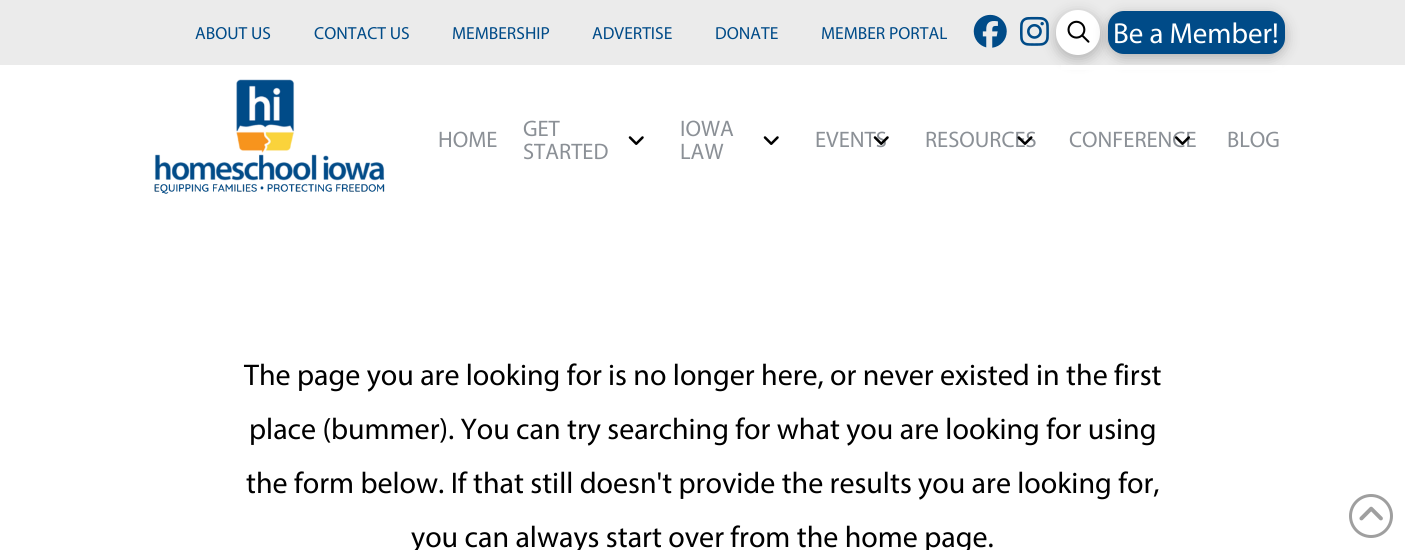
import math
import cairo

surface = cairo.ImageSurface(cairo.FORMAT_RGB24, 1405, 550)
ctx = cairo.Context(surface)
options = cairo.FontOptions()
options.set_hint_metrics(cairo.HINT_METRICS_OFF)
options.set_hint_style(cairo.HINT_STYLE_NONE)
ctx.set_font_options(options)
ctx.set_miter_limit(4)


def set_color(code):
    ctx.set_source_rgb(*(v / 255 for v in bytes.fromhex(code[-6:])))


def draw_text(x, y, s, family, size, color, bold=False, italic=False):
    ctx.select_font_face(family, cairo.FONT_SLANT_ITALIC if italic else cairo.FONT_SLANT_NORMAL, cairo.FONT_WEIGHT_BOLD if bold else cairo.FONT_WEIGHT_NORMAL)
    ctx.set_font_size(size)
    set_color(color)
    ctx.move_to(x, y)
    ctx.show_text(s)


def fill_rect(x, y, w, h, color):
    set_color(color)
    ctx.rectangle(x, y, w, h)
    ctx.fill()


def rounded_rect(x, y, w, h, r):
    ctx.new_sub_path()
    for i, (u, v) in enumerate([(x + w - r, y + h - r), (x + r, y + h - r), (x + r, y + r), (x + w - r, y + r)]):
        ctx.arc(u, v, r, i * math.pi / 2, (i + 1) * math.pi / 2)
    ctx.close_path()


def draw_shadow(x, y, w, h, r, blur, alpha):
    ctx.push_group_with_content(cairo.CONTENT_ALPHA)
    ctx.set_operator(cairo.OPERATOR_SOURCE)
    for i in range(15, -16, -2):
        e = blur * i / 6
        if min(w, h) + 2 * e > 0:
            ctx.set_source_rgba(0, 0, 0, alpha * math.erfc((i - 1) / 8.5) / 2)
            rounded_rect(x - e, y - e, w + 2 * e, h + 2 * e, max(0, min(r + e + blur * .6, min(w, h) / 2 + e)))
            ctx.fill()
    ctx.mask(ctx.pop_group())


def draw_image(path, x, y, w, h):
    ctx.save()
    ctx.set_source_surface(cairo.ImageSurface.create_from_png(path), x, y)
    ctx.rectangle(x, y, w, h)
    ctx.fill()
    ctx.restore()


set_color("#ffffff")
ctx.paint()
fill_rect(0, 0, 1405, 65, "#ebebeb")
draw_text(195, 39, "ABOUT US", "Myriad", 17.5, "#004b88")
draw_text(314, 39, "CONTACT US", "Myriad", 17.5, "#004b88")
draw_text(452, 39, "MEMBERSHIP", "Myriad", 17.5, "#004b88")
draw_text(592, 39, "ADVERTISE", "Myriad", 17.5, "#004b88")
draw_text(715, 39, "DONATE", "Myriad", 17.5, "#004b88")
draw_text(821, 39, "MEMBER PORTAL", "Myriad", 17.5, "#004b88")
draw_image("assets/img1.png", 973, 14, 34, 34)
draw_image("assets/img3.png", 1020, 16, 29, 30)
set_color("#000000")
draw_shadow(1056, 14, 44, 45, 22, 7, 0.25)
set_color("#ffffff")
rounded_rect(1056, 10, 44, 45, 22)
ctx.fill()
draw_image("assets/img2.png", 1067, 20, 23, 23)
set_color("#000000")
draw_shadow(1108, 15, 177, 43, 16, 7, 0.25)
set_color("#004b88")
rounded_rect(1108, 11, 177, 43, 16)
ctx.fill()
draw_text(1113, 43, "Be a Member!", "Myriad", 29, "#ffffff")
fill_rect(1061, 65, 221, 5, "#ffffff")
draw_image("assets/img4.png", 154, 79, 231, 115)
draw_text(438, 147, "HOME", "Myriad", 22.5, "#8b9096")
draw_text(523, 136, "GET", "Myriad", 22.5, "#8b9096")
draw_text(523, 159, "STARTED", "Myriad", 22.5, "#8b9096")
draw_image("assets/img5.png", 628, 136, 16, 9)
draw_text(680, 136, "IOWA", "Myriad", 22.5, "#8b9096")
draw_text(680, 159, "LAW", "Myriad", 22.5, "#8b9096")
draw_image("assets/img5.png", 763, 136, 16, 9)
draw_text(815, 147, "EVENTS", "Myriad", 22.5, "#8b9096")
draw_image("assets/img6.png", 873, 136, 16, 9)
draw_text(925, 147, "RESOURCES", "Myriad", 22.5, "#8b9096")
draw_image("assets/img7.png", 1017, 136, 16, 9)
draw_text(1069, 147, "CONFERENCE", "Myriad", 22.5, "#8b9096")
draw_image("assets/img8.png", 1175, 136, 15, 9)
draw_text(1227, 147, "BLOG", "Myriad", 22.5, "#8b9096")
draw_text(244, 385, "The page you are looking for is no longer here, or never existed in the first", "Myriad", 30, "#000000")
draw_text(249, 439, "place (bummer). You can try searching for what you are looking for using", "Myriad", 30, "#000000")
draw_text(246, 493, "the form below. If that still doesn't provide the results you are looking for,", "Myriad", 30, "#000000")
draw_text(411, 547, "you can always start over from the home page.", "Myriad", 30, "#000000")
ctx.new_path()
ctx.arc(1371, 516, 20.5, 0, 2 * math.pi)
set_color("#9f9f9f")
ctx.set_line_width(3)
ctx.stroke()
draw_image("assets/img9.png", 1359, 506, 24, 15)
surface.write_to_png("output.png")
